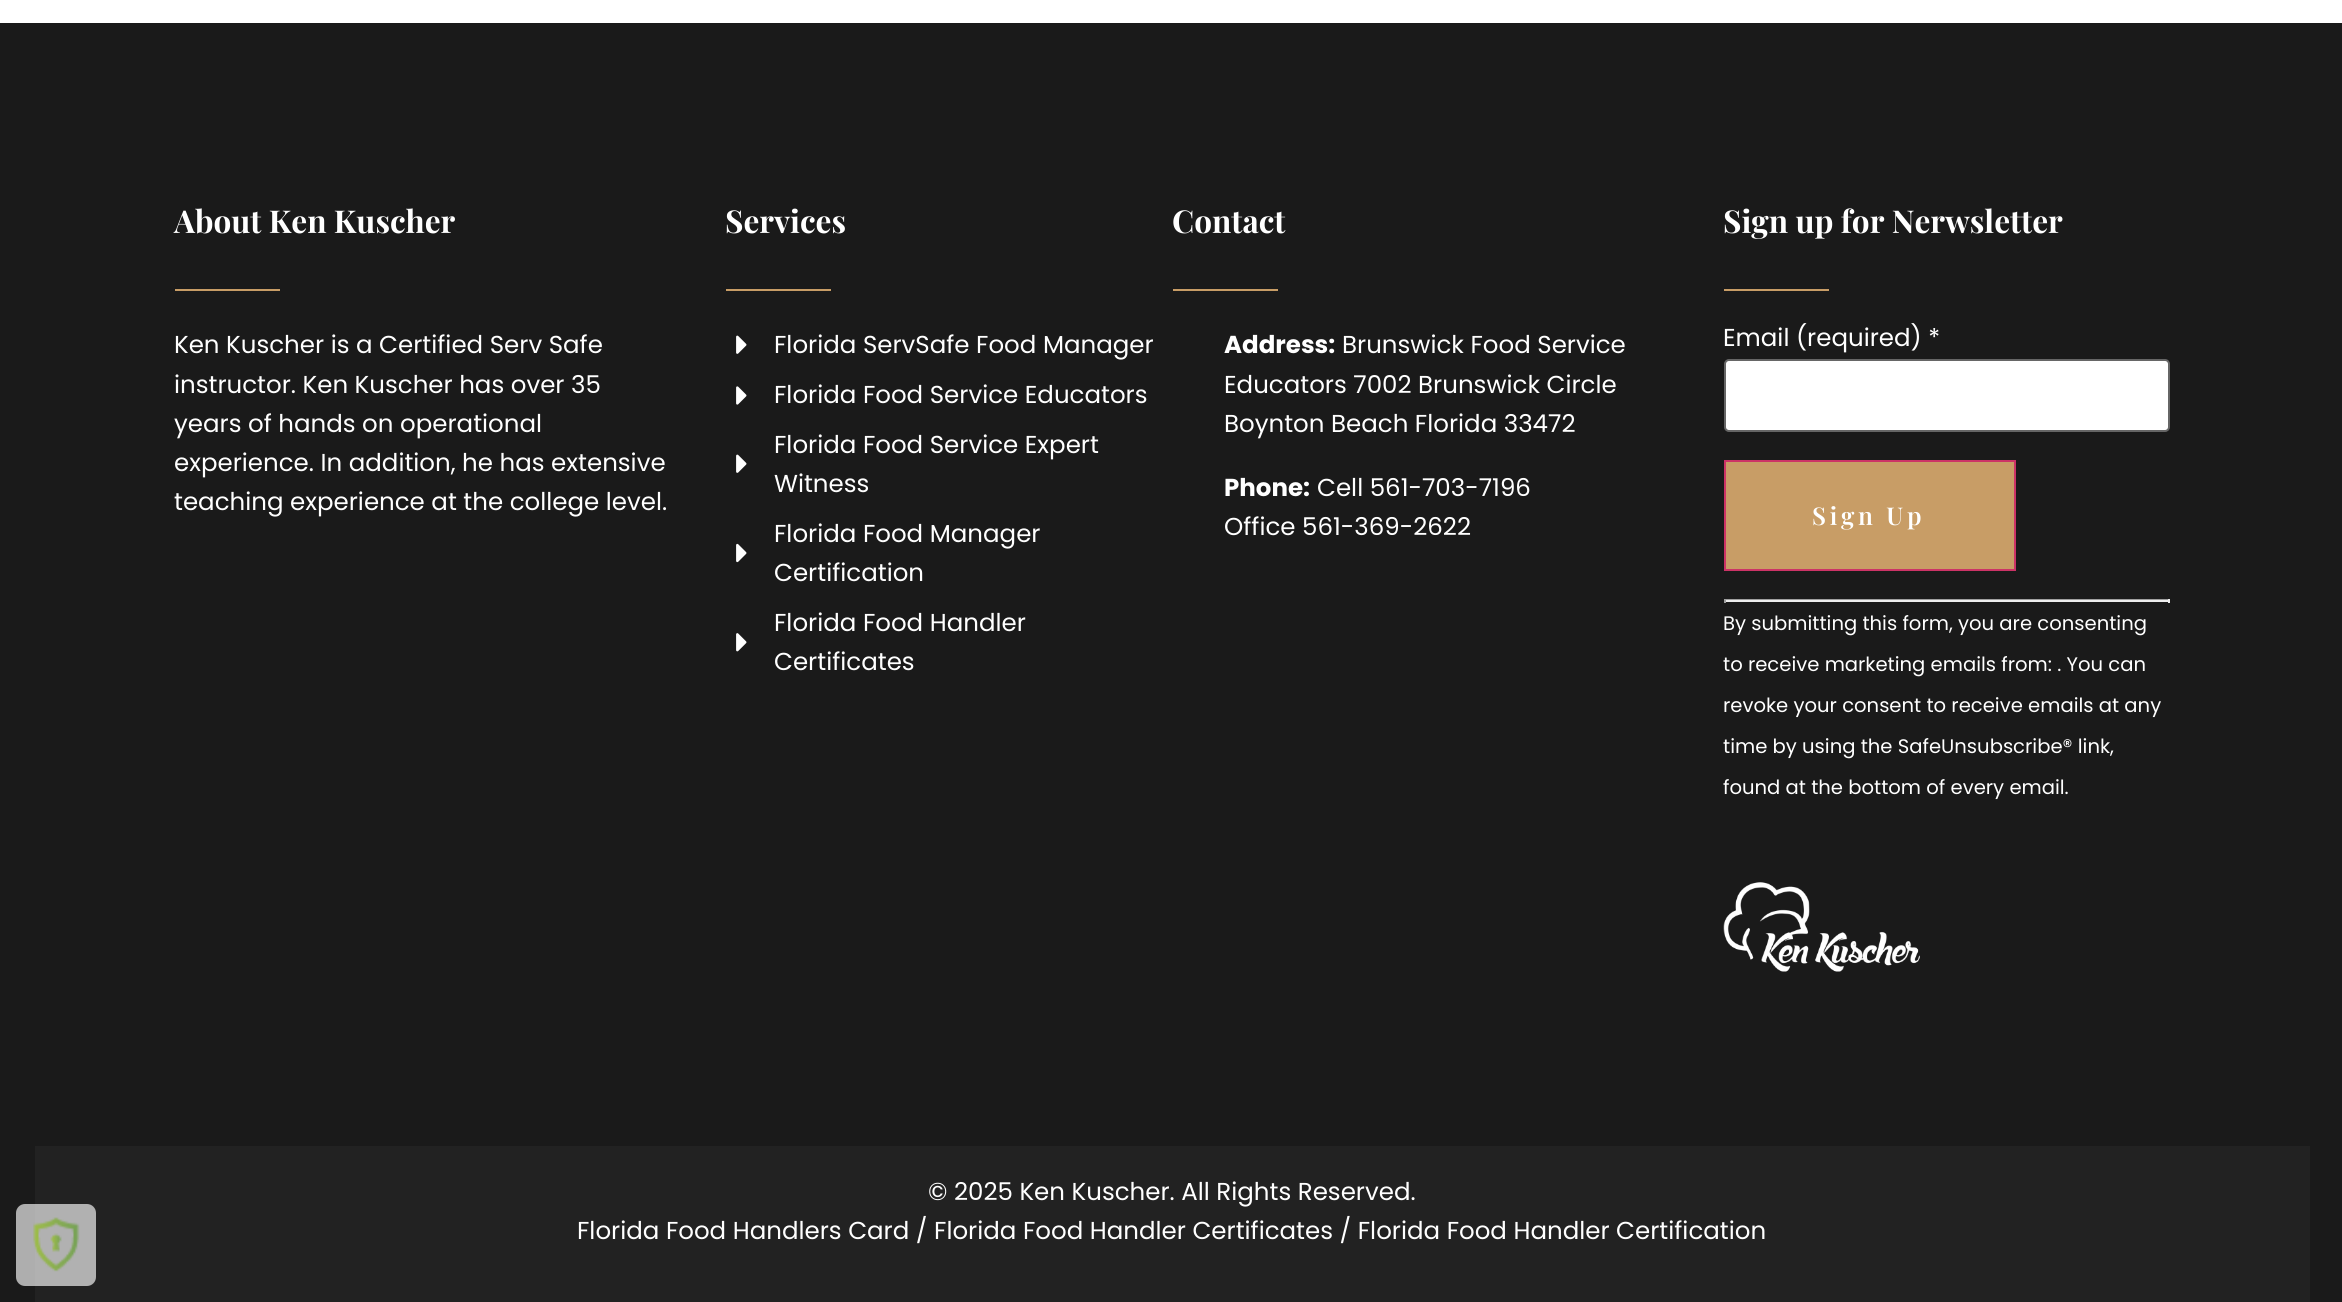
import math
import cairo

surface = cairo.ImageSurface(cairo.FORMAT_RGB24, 2342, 1302)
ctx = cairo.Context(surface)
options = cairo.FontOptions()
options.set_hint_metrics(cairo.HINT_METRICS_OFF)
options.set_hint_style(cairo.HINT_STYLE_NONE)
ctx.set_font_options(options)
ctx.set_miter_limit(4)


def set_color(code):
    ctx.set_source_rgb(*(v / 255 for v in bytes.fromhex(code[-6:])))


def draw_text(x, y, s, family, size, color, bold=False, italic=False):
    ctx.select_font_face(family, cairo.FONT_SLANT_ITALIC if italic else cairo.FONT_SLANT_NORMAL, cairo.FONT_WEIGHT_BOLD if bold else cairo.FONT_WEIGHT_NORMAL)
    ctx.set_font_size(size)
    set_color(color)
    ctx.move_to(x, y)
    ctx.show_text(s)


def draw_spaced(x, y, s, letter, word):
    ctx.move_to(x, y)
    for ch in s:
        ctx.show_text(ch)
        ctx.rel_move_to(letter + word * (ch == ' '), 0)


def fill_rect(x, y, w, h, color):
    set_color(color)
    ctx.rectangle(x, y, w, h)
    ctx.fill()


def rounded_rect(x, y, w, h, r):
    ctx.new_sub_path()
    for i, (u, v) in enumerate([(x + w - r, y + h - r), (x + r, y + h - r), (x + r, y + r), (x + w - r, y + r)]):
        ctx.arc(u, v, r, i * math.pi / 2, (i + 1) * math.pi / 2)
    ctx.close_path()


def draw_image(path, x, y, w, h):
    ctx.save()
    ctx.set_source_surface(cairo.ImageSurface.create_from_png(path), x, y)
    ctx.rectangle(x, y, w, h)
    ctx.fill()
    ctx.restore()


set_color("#ffffff")
ctx.paint()
fill_rect(0, 23, 2342, 1279, "#1a1a1a")
fill_rect(35, 1146, 2275, 156, "#222222")
ctx.set_source_rgba(0.945, 0.945, 0.945, 0.69)
rounded_rect(16, 1204, 80, 82, 9)
ctx.fill()
draw_image("assets/img1.png", 33, 1217, 47, 55)
draw_text(174, 233, "About Ken Kuscher", "Playfair Display", 31.5, "#ffffff", bold=True)
fill_rect(175, 289, 105, 2, "#c89d66")
draw_text(174, 353, "Ken Kuscher is a Certified Serv Safe", "Poppins", 24.5, "#ffffff")
draw_text(174, 393, "instructor. Ken Kuscher has over 35", "Poppins", 24.5, "#ffffff")
draw_text(174, 432, "years of hands on operational", "Poppins", 24.5, "#ffffff")
draw_text(174, 471, "experience. In addition, he has extensive", "Poppins", 24.5, "#ffffff")
draw_text(174, 510, "teaching experience at the college level.", "Poppins", 24.5, "#ffffff")
draw_text(725, 233, "Services", "Playfair Display", 31.5, "#ffffff", bold=True)
fill_rect(726, 289, 105, 2, "#c89d66")
draw_image("assets/img2.png", 736, 335, 11, 19)
draw_text(774, 353, "Florida ServSafe Food Manager", "Poppins", 24.5, "#ffffff")
draw_image("assets/img3.png", 736, 386, 11, 19)
draw_text(774, 403, "Florida Food Service Educators", "Poppins", 24.5, "#ffffff")
draw_image("assets/img2.png", 736, 454, 11, 19)
draw_text(774, 453, "Florida Food Service Expert", "Poppins", 24.5, "#ffffff")
draw_text(774, 492, "Witness", "Poppins", 24.5, "#ffffff")
draw_image("assets/img4.png", 736, 543, 11, 20)
draw_text(774, 542, "Florida Food Manager", "Poppins", 24.5, "#ffffff")
draw_text(774, 581, "Certification", "Poppins", 24.5, "#ffffff")
draw_image("assets/img5.png", 736, 633, 11, 19)
draw_text(774, 631, "Florida Food Handler", "Poppins", 24.5, "#ffffff")
draw_text(774, 670, "Certificates", "Poppins", 24.5, "#ffffff")
draw_text(1172, 233, "Contact", "Playfair Display", 31.5, "#ffffff", bold=True)
fill_rect(1173, 289, 105, 2, "#c89d66")
draw_text(1224, 353, "Address:", "Poppins", 24.5, "#ffffff", bold=True)
draw_text(1342, 353, "Brunswick Food Service", "Poppins", 24.5, "#ffffff")
draw_text(1224, 393, "Educators 7002 Brunswick Circle", "Poppins", 24.5, "#ffffff")
draw_text(1224, 432, "Boynton Beach Florida 33472", "Poppins", 24.5, "#ffffff")
draw_text(1224, 496, "Phone:", "Poppins", 24.5, "#ffffff", bold=True)
draw_text(1317, 496, "Cell 561-703-7196", "Poppins", 24.5, "#ffffff")
draw_text(1224, 535, "Office 561-369-2622", "Poppins", 24.5, "#ffffff")
draw_text(1723, 233, "Sign up for Nerwsletter", "Playfair Display", 31.5, "#ffffff", bold=True)
fill_rect(1724, 289, 105, 2, "#c89d66")
draw_text(1723, 346, "Email (required) *", "Poppins", 24.5, "#ffffff")
rounded_rect(1725, 360, 444, 71, 4)
ctx.fill_preserve()
set_color("#666666")
ctx.stroke()
set_color("#c89d66")
ctx.rectangle(1725, 461, 290, 109)
ctx.fill_preserve()
set_color("#cc3366")
ctx.stroke()
ctx.select_font_face("Playfair Display SemiBold")
set_color("#ffffff")
draw_spaced(1812, 525, "Sign Up", 3.75, 0)
fill_rect(1724, 599, 446, 1, "#9f9f9f")
fill_rect(2168, 599, 2, 4, "#eeeeee")
fill_rect(1724, 600, 446, 2, "#eeeeee")
fill_rect(1724, 599, 2, 4, "#9f9f9f")
draw_text(1723, 630, "By submitting this form, you are consenting", "Poppins", 19.6, "#ffffff")
draw_text(1723, 671, "to receive marketing emails from: . You can", "Poppins", 19.6, "#ffffff")
draw_text(1723, 712, "revoke your consent to receive emails at any", "Poppins", 19.6, "#ffffff")
draw_text(1723, 753, "time by using the SafeUnsubscribe® link,", "Poppins", 19.6, "#ffffff")
draw_text(1723, 794, "found at the bottom of every email.", "Poppins", 19.6, "#ffffff")
draw_image("assets/img6.png", 1723, 882, 197, 90)
draw_text(928, 1200, "© 2025 Ken Kuscher. All Rights Reserved.", "Poppins", 24.5, "#ffffff")
draw_text(577, 1239, "Florida Food Handlers Card / Florida Food Handler Certificates / Florida Food Handler Certification", "Poppins", 24.5, "#ffffff")
surface.write_to_png("output.png")
